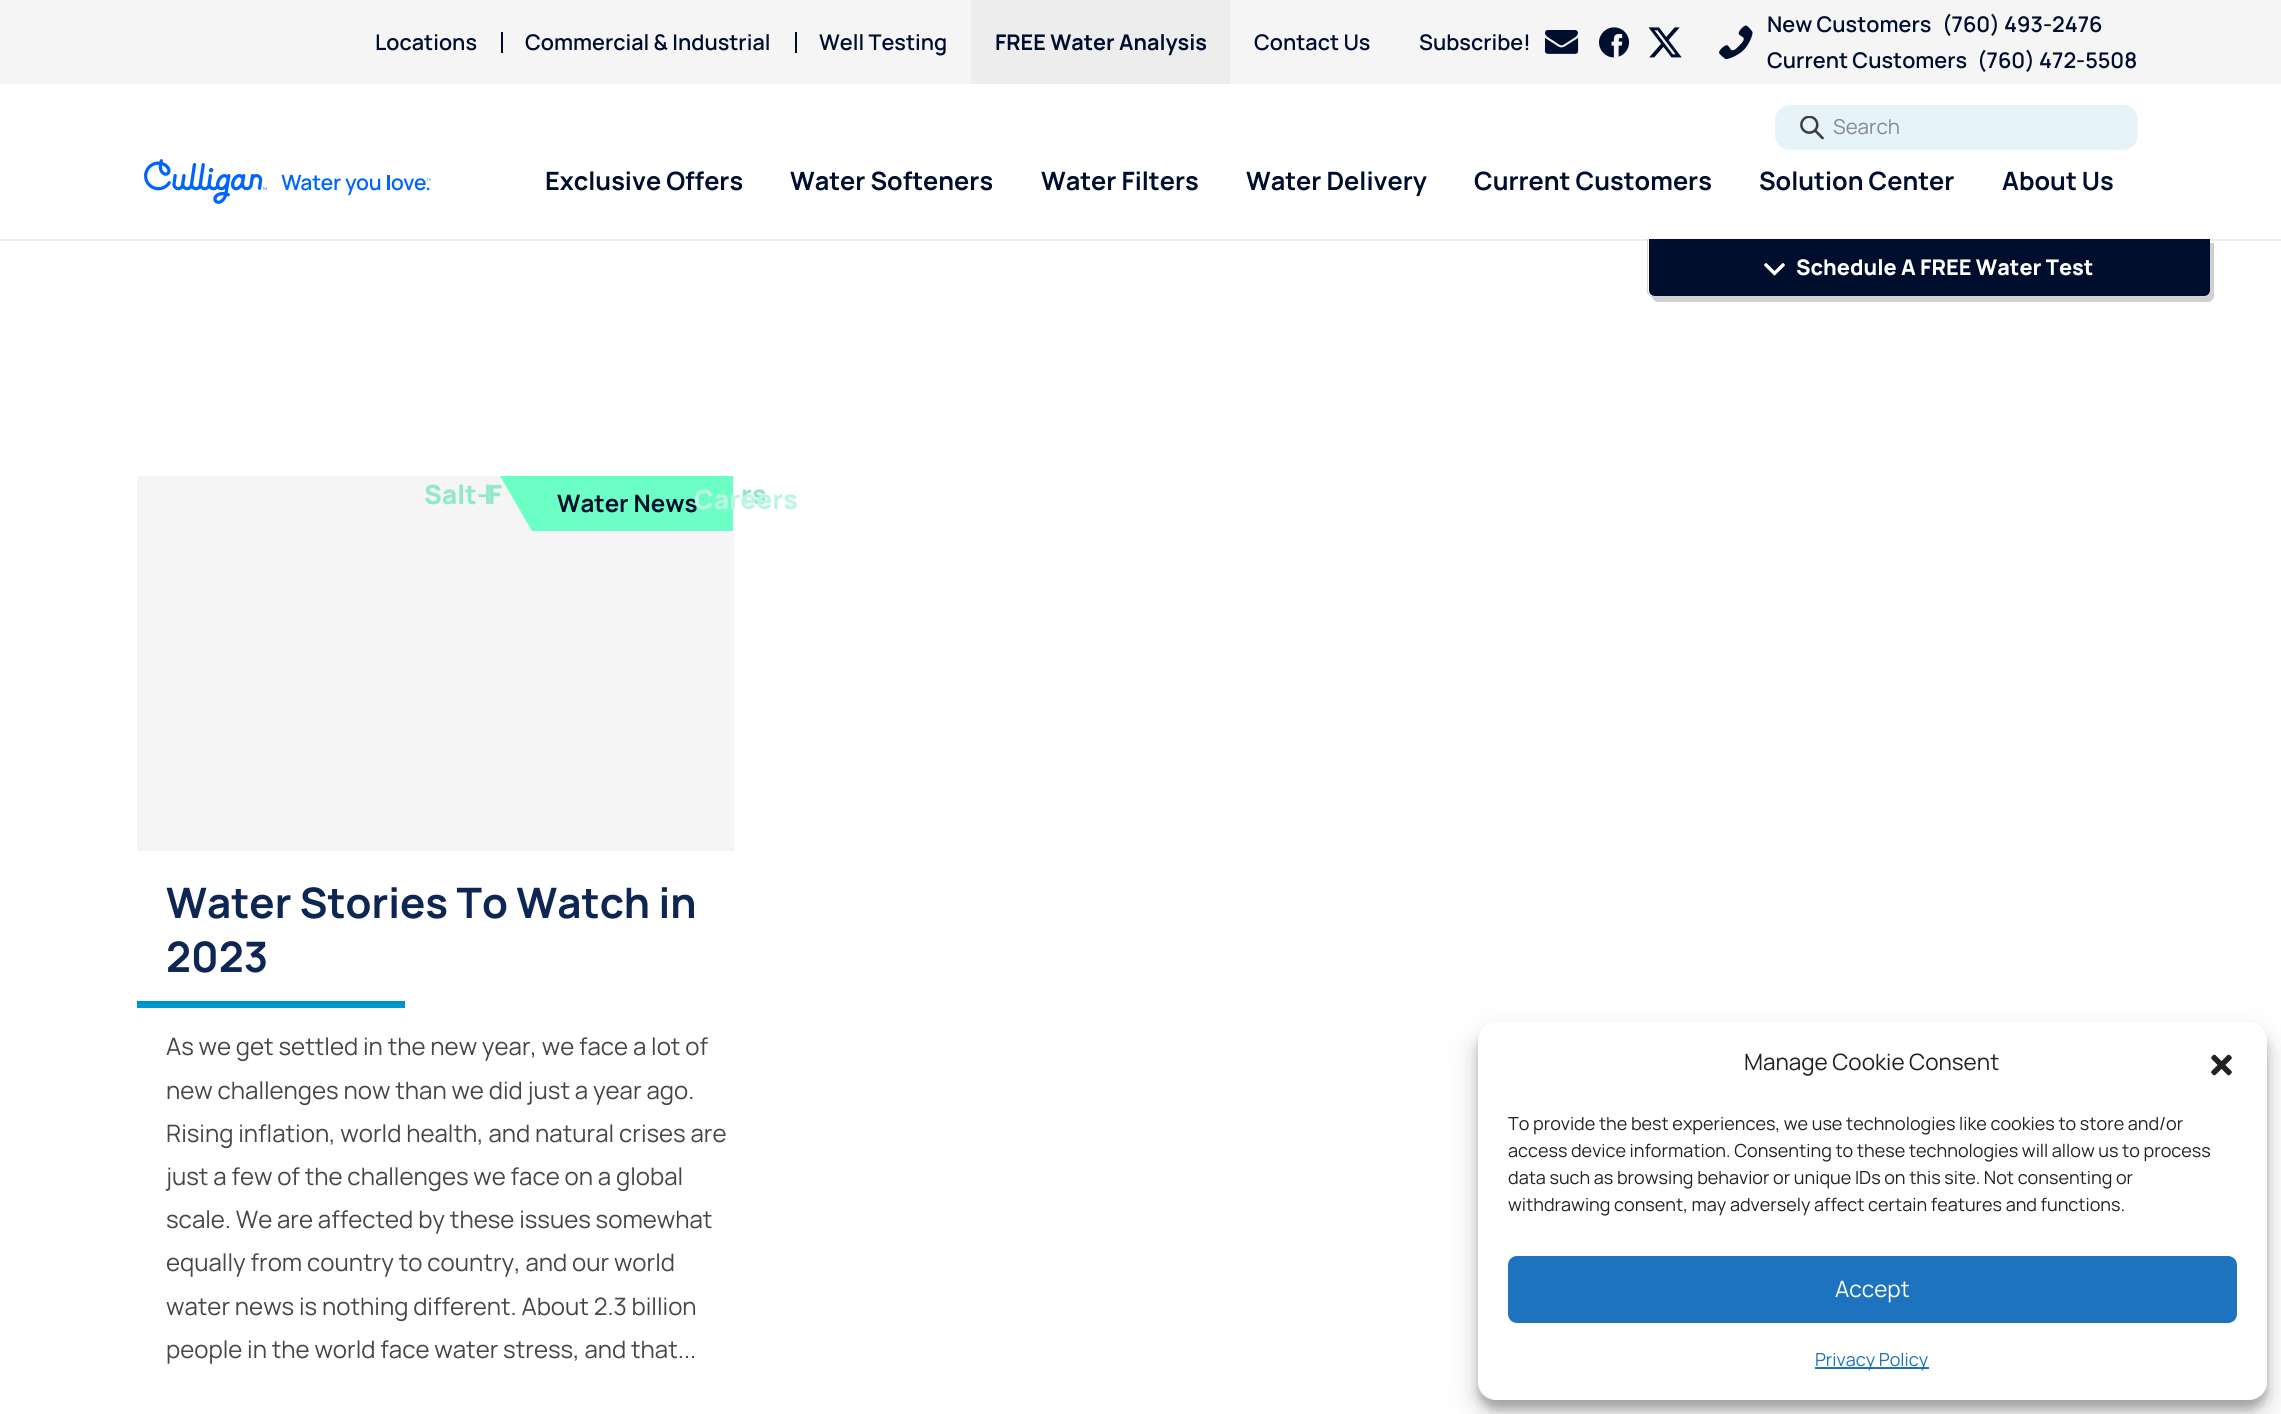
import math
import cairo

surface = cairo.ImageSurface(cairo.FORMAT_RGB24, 2281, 1414)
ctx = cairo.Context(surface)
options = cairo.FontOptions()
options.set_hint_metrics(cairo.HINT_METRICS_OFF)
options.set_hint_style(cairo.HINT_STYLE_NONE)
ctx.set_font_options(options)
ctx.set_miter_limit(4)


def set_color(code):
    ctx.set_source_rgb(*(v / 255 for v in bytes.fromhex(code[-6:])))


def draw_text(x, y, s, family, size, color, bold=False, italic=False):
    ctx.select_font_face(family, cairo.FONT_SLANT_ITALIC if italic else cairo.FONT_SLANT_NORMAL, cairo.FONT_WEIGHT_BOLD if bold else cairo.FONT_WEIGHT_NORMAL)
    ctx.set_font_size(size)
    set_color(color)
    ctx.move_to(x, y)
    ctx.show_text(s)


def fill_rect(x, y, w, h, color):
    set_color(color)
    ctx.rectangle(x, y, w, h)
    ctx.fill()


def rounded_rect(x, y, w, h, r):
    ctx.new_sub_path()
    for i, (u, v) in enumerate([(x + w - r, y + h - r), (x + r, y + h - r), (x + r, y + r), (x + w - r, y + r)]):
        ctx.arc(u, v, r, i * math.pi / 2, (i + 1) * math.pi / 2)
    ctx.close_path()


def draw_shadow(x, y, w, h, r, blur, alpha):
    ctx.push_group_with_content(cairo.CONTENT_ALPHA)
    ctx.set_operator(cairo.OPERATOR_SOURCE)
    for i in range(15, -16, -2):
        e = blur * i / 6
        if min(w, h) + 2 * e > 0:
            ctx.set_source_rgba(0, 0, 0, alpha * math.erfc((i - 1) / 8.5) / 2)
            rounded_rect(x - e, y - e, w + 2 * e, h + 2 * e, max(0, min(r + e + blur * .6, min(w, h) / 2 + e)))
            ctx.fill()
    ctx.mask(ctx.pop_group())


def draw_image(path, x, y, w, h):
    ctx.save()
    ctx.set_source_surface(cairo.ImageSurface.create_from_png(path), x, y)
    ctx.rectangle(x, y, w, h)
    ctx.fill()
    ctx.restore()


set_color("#ffffff")
ctx.paint()
fill_rect(0, 239, 2281, 2, "#ededed")
fill_rect(0, 0, 2281, 84, "#f5f5f5")
draw_text(375, 50, "Locations", "Manrope SemiBold", 21.6, "#000e2e")
fill_rect(501, 32, 2, 21, "#000e2e")
draw_text(525, 50, "Commercial & Industrial", "Manrope SemiBold", 21.6, "#000e2e")
fill_rect(795, 32, 2, 21, "#000e2e")
draw_text(819, 50, "Well Testing", "Manrope SemiBold", 21.6, "#000e2e")
fill_rect(971, 0, 259, 84, "#ededed")
draw_text(995, 50, "FREE Water Analysis", "Manrope", 21.6, "#000e2e", bold=True)
draw_text(1254, 50, "Contact Us", "Manrope SemiBold", 21.6, "#000e2e")
draw_text(1419, 50, "Subscribe!", "Manrope SemiBold", 21.6, "#000e2e")
draw_image("assets/img1.png", 1545, 30, 34, 24)
draw_image("assets/img2.png", 1599, 27, 31, 31)
draw_image("assets/img3.png", 1648, 27, 34, 31)
draw_image("assets/img4.png", 1719, 25, 34, 35)
draw_text(1767, 32, "New Customers", "Manrope SemiBold", 21.6, "#000e2e")
draw_text(1942, 32, "(760) 493-2476", "Manrope SemiBold", 21.6, "#000e2e")
draw_text(1767, 68, "Current Customers", "Manrope SemiBold", 21.6, "#000e2e")
draw_text(1977, 68, "(760) 472-5508", "Manrope SemiBold", 21.6, "#000e2e")
draw_image("assets/img5.png", 144, 159, 287, 45)
set_color("#e6f3f9")
rounded_rect(1775, 105, 363, 45, 15)
ctx.fill()
draw_image("assets/img6.png", 1800, 116, 24, 24)
draw_text(1833, 134, "Search", "Manrope", 20.5, "#86898a")
draw_text(790, 190, "Water Softeners", "Manrope", 25.25, "#000e2e", bold=True)
fill_rect(137, 476, 597, 375, "#f5f5f5")
set_color("#6bffc6")
ctx.new_path()
ctx.move_to(532, 531)
ctx.line_to(500, 476)
ctx.line_to(733, 476)
ctx.line_to(733, 531)
ctx.close_path()
ctx.fill()
draw_text(424, 504, "Salt-F", "Manrope ExtraBold", 26.5, "#93e8ca")
draw_text(741, 504, "rs", "Manrope ExtraBold", 26.5, "#93e8ca")
draw_text(1041, 190, "Water Filters", "Manrope", 25.25, "#000e2e", bold=True)
draw_text(484, 504, "l", "Manrope ExtraBold", 26.5, "#93e8ca")
draw_text(545, 190, "Exclusive Offers", "Manrope", 25.25, "#000e2e", bold=True)
draw_text(2002, 190, "About Us", "Manrope", 25.25, "#000e2e", bold=True)
draw_text(557, 512, "Water News", "Manrope", 24, "#000e2e", bold=True)
draw_text(694, 509, "Careers", "Manrope ExtraBold", 26.5, "#bcf6e1")
draw_text(1246, 190, "Water Delivery", "Manrope", 25.25, "#000e2e", bold=True)
draw_text(1474, 190, "Current Customers", "Manrope", 25.25, "#000e2e", bold=True)
draw_text(1759, 190, "Solution Center", "Manrope", 25.25, "#000e2e", bold=True)
set_color("#d0d0d0")
ctx.new_path()
ctx.move_to(1652, 297)
ctx.curve_to(1653, 300, 1655, 302, 1658, 302)
ctx.line_to(2208, 302)
ctx.curve_to(2211, 302, 2214, 299, 2214, 296)
ctx.line_to(2214, 243)
ctx.line_to(2210, 243)
ctx.line_to(2210, 291)
ctx.curve_to(2210, 295, 2207, 297, 2204, 297)
ctx.close_path()
ctx.fill()
set_color("#d5d5d5")
ctx.set_fill_rule(cairo.FILL_RULE_EVEN_ODD)
ctx.new_path()
ctx.move_to(1647, 239)
ctx.line_to(2210, 239)
ctx.line_to(2210, 291)
ctx.curve_to(2210, 295, 2207, 297, 2204, 297)
ctx.line_to(1653, 297)
ctx.curve_to(1650, 297, 1647, 295, 1647, 291)
ctx.close_path()
ctx.move_to(1648, 239)
ctx.line_to(2210, 239)
ctx.line_to(2210, 291)
ctx.curve_to(2210, 294, 2207, 296, 2204, 296)
ctx.line_to(1653, 296)
ctx.curve_to(1651, 296, 1648, 294, 1648, 291)
ctx.close_path()
ctx.fill()
set_color("#000e2e")
ctx.new_path()
ctx.move_to(1650, 240)
ctx.line_to(2209, 240)
ctx.line_to(2209, 290)
ctx.curve_to(2209, 293, 2207, 295, 2204, 295)
ctx.line_to(1655, 295)
ctx.curve_to(1652, 295, 1650, 293, 1650, 290)
ctx.close_path()
ctx.fill_preserve()
ctx.stroke()
draw_image("assets/img7.png", 1764, 263, 21, 13)
draw_text(1796, 275, "Schedule A FREE Water Test", "Manrope ExtraBold", 21.6, "#ffffff")
draw_text(166, 918, "Water Stories To Watch in", "Manrope", 42, "#0e2653", bold=True)
draw_text(166, 972, "2023", "Manrope", 42, "#0e2653", bold=True)
gradient = cairo.LinearGradient(271, 1001, 271, 1008)
gradient.add_color_stop_rgba(0, 0, 0.549, 0.765, 1)
gradient.add_color_stop_rgba(0.51, 0, 0.588, 0.804, 1)
gradient.add_color_stop_rgba(1, 0, 0.596, 0.812, 1)
ctx.set_source(gradient)
ctx.rectangle(137, 1001, 268, 7)
ctx.fill()
draw_text(166, 1055, "As we get settled in the new year, we face a lot of", "Manrope", 24, "#464646")
draw_text(166, 1099, "new challenges now than we did just a year ago.", "Manrope", 24, "#464646")
draw_text(166, 1142, "Rising inflation, world health, and natural crises are", "Manrope", 24, "#464646")
draw_text(166, 1185, "just a few of the challenges we face on a global", "Manrope", 24, "#464646")
draw_text(166, 1228, "scale. We are affected by these issues somewhat", "Manrope", 24, "#464646")
draw_text(166, 1271, "equally from country to country, and our world", "Manrope", 24, "#464646")
draw_text(166, 1315, "water news is nothing different. About 2.3 billion", "Manrope", 24, "#464646")
draw_text(166, 1358, "people in the world face water stress, and that...", "Manrope", 24, "#464646")
set_color("#000000")
draw_shadow(1478, 1031, 789, 378, 18, 4.5, 0.23)
draw_shadow(1478, 1037, 789, 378, 18, 15, 0.19)
set_color("#ffffff")
rounded_rect(1478, 1022, 789, 378, 18)
ctx.fill()
draw_text(1744, 1070, "Manage Cookie Consent", "Manrope", 22.5, "#222222")
draw_image("assets/img8.png", 2211, 1054, 21, 22)
draw_text(1508, 1130, "To provide the best experiences, we use technologies like cookies to store and/or", "Manrope", 18, "#222222")
draw_text(1508, 1157, "access device information. Consenting to these technologies will allow us to process", "Manrope", 18, "#222222")
draw_text(1508, 1184, "data such as browsing behavior or unique IDs on this site. Not consenting or", "Manrope", 18, "#222222")
draw_text(1508, 1211, "withdrawing consent, may adversely affect certain features and functions.", "Manrope", 18, "#222222")
set_color("#1e73be")
rounded_rect(1509, 1257, 727, 65, 8)
ctx.fill_preserve()
ctx.stroke()
draw_text(1835, 1297, "Accept", "Manrope", 22.5, "#ffffff")
fill_rect(1815, 1367, 114, 2, "#1e73be")
draw_text(1815, 1366, "Privacy Policy", "Manrope", 18, "#1e73be")
surface.write_to_png("output.png")
